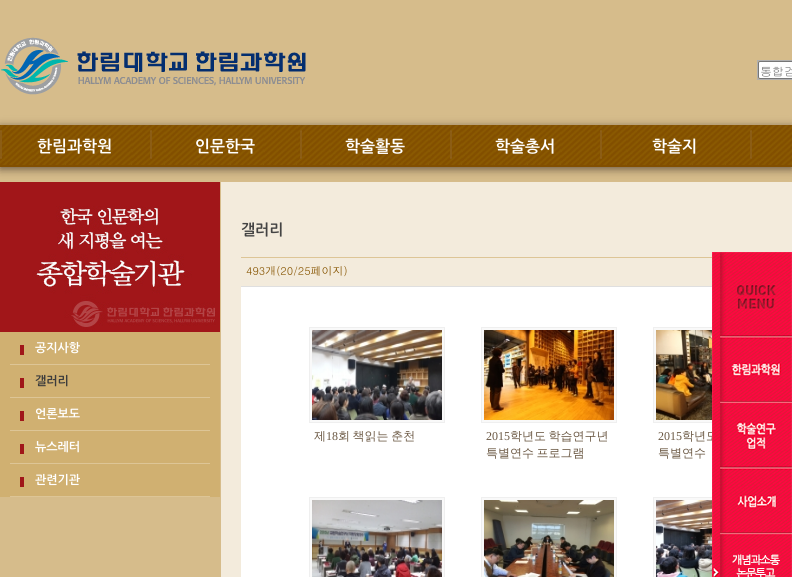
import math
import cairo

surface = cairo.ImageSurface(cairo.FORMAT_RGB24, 792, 577)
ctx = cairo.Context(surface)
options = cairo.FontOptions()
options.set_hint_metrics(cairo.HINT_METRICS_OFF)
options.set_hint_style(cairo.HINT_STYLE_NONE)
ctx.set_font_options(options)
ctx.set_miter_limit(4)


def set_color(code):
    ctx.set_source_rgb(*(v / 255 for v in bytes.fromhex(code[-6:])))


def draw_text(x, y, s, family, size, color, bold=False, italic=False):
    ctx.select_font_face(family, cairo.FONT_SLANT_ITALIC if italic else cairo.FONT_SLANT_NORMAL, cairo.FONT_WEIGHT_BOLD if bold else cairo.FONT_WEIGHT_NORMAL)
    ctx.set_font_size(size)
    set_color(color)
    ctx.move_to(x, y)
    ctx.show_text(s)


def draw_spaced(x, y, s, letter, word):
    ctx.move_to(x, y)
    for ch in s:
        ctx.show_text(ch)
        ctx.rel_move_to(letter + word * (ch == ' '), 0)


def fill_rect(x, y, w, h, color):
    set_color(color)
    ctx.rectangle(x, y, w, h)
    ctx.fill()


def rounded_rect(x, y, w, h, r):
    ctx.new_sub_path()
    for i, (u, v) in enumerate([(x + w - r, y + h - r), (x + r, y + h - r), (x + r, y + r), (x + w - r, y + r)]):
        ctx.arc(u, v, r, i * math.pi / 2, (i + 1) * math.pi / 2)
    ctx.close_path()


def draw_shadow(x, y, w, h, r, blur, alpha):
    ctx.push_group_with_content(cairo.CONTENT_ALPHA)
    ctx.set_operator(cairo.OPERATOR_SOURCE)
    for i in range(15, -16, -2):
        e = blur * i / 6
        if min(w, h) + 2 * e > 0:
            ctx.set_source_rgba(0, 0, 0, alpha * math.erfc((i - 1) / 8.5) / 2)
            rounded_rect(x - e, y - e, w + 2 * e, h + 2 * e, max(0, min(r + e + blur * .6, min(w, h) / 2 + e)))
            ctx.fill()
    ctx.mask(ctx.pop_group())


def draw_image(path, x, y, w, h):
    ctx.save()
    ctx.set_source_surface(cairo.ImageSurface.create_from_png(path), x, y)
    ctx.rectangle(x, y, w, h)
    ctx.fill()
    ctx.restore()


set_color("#d6bc8b")
ctx.paint()
draw_image("assets/img1.png", 1, 37, 305, 58)
fill_rect(757, 60, 35, 1, "#b0b0b0")
fill_rect(757, 79, 35, 1, "#b0b0b0")
fill_rect(757, 60, 1, 20, "#b0b0b0")
set_color("#ffffff")
rounded_rect(758.5, 61.5, 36, 17, 1.5)
ctx.fill_preserve()
set_color("#767676")
ctx.set_line_width(1)
ctx.stroke()
draw_text(760, 76, "통합검", "Gulim", 12, "#757575")
set_color("#6a5742")
draw_shadow(0, 127, 792, 42, 0, 4.5, 1)
draw_image("assets/img2.png", 0, 125, 792, 40)
fill_rect(0, 165, 792, 2, "#824f00")
draw_image("assets/img3.png", 0, 130, 2, 29)
draw_text(37, 152, "한림과학원", "NanumGothic", 16, "#ffffff", bold=True)
draw_image("assets/img3.png", 150, 130, 2, 29)
draw_text(195, 152, "인문한국", "NanumGothic", 16, "#ffffff", bold=True)
draw_image("assets/img3.png", 300, 130, 2, 29)
draw_text(345, 152, "학술활동", "NanumGothic", 16, "#ffffff", bold=True)
draw_image("assets/img3.png", 450, 130, 2, 29)
draw_text(495, 152, "학술총서", "NanumGothic", 16, "#ffffff", bold=True)
draw_image("assets/img3.png", 600, 130, 2, 29)
draw_text(652, 152, "학술지", "NanumGothic", 16, "#ffffff", bold=True)
draw_image("assets/img3.png", 750, 130, 2, 29)
draw_image("assets/img4.png", 0, 182, 220, 150)
fill_rect(0, 332, 220, 165, "#d0b071")
fill_rect(20, 345, 4, 10, "#a01619")
fill_rect(10, 364, 200, 1, "#ddc596")
draw_text(35, 352, "공지사항", "NanumGothic", 12, "#ffffff", bold=True)
fill_rect(20, 378, 4, 10, "#a01619")
fill_rect(10, 397, 200, 1, "#ddc596")
draw_text(35, 385, "갤러리", "NanumGothic", 12, "#3c3c3c", bold=True)
fill_rect(20, 411, 4, 10, "#a01619")
fill_rect(10, 430, 200, 1, "#ddc596")
draw_text(35, 418, "언론보도", "NanumGothic", 12, "#ffffff", bold=True)
fill_rect(20, 444, 4, 10, "#a01619")
fill_rect(10, 463, 200, 1, "#ddc596")
draw_text(35, 451, "뉴스레터", "NanumGothic", 12, "#ffffff", bold=True)
fill_rect(20, 477, 4, 10, "#a01619")
fill_rect(10, 496, 200, 1, "#ddc596")
draw_text(35, 484, "관련기관", "NanumGothic", 12, "#ffffff", bold=True)
fill_rect(221, 182, 571, 395, "#f3ebdc")
fill_rect(241, 257, 471, 1, "#ddc596")
draw_text(241, 235, "갤러리", "NanumGothic", 15, "#444444", bold=True)
draw_text(246, 275, "493개(20/25페이지)", "Dotum", 11, "#865400")
fill_rect(241, 286, 471, 1, "#dfdfdf")
fill_rect(241, 287, 471, 290, "#ffffff")
set_color("#f9f9f9")
ctx.rectangle(309.5, 327.5, 135, 95)
ctx.fill_preserve()
set_color("#efefef")
ctx.stroke()
draw_image("assets/img5.png", 312, 330, 130, 90)
draw_text(314, 440, "제", "WenQuanYi Zen Hei Medium", 12, "#6a5742")
draw_text(326, 440, "18", "Liberation Serif", 12, "#6a5742")
ctx.select_font_face("WenQuanYi Zen Hei Medium")
draw_spaced(338, 440, "회 책읽는 춘천", 0, -1)
set_color("#f9f9f9")
ctx.rectangle(481.5, 327.5, 135, 95)
ctx.fill_preserve()
set_color("#efefef")
ctx.stroke()
draw_image("assets/img6.png", 484, 330, 130, 90)
draw_text(486, 440, "2015", "Liberation Serif", 12, "#6a5742")
ctx.select_font_face("WenQuanYi Zen Hei Medium")
draw_spaced(510, 440, "학년도 학습연구년", 0, -1)
draw_spaced(486, 457, "특별연수 프로그램", 0, -1)
fill_rect(654, 328, 58, 94, "#f9f9f9")
ctx.rectangle(653.5, 327.5, 135, 95)
set_color("#efefef")
ctx.stroke()
draw_image("assets/img7.png", 656, 330, 56, 90)
draw_text(658, 440, "2015", "Liberation Serif", 12, "#6a5742")
ctx.select_font_face("WenQuanYi Zen Hei Medium")
draw_spaced(682, 440, "학년도", 0, -1)
draw_spaced(658, 457, "특별연수", 0, -1)
set_color("#f9f9f9")
ctx.rectangle(309.5, 497.5, 135, 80)
ctx.fill_preserve()
set_color("#efefef")
ctx.stroke()
draw_image("assets/img8.png", 312, 500, 130, 77)
set_color("#f9f9f9")
ctx.rectangle(481.5, 497.5, 135, 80)
ctx.fill_preserve()
set_color("#efefef")
ctx.stroke()
draw_image("assets/img9.png", 484, 500, 130, 77)
fill_rect(654, 498, 58, 79, "#f9f9f9")
ctx.rectangle(653.5, 497.5, 135, 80)
set_color("#efefef")
ctx.stroke()
draw_image("assets/img10.png", 656, 500, 56, 77)
draw_image("assets/img11.png", 712, 252, 80, 85)
draw_image("assets/img12.png", 712, 337, 80, 65)
draw_image("assets/img13.png", 712, 402, 80, 66)
draw_image("assets/img14.png", 712, 468, 80, 66)
draw_image("assets/img15.png", 712, 534, 80, 43)
surface.write_to_png("output.png")
